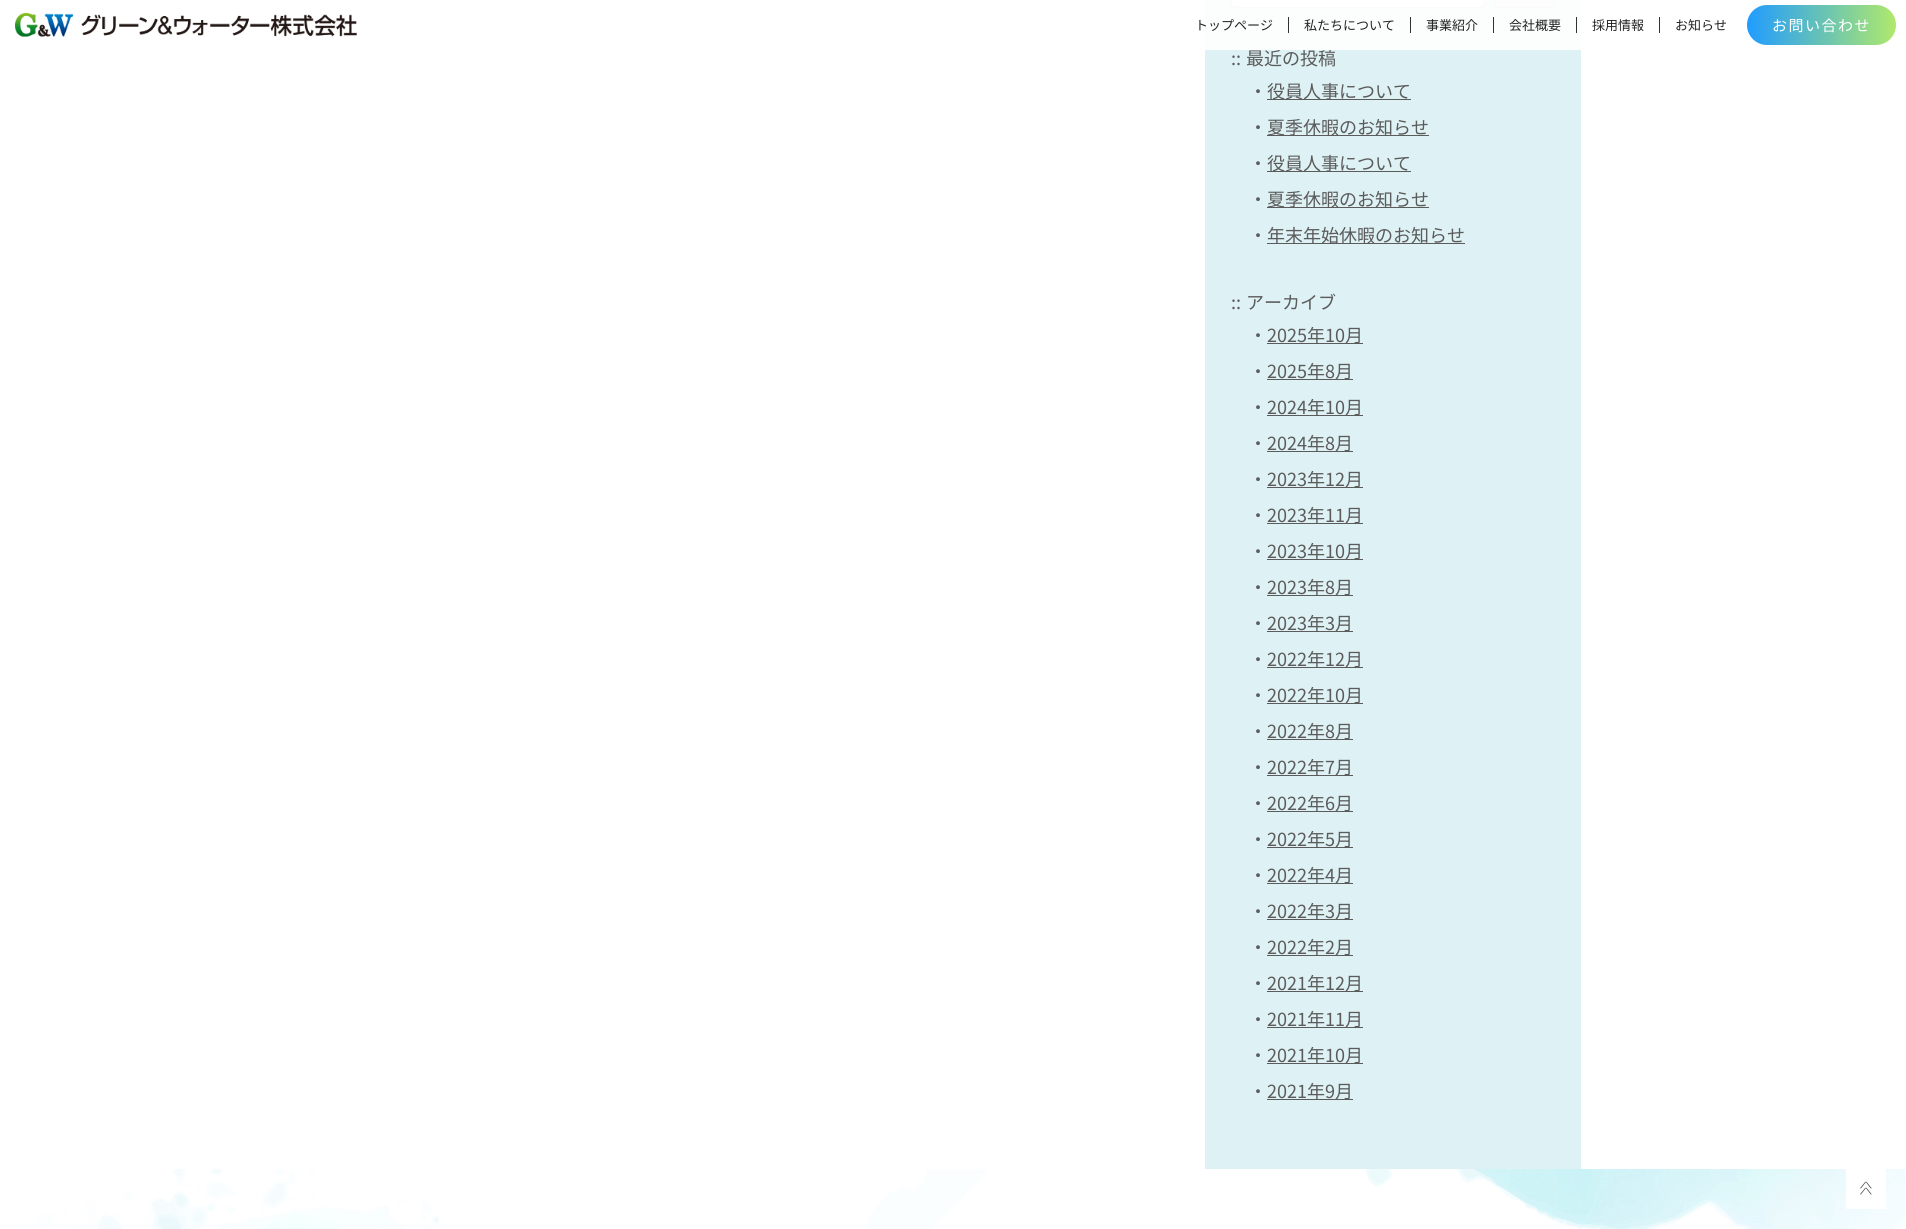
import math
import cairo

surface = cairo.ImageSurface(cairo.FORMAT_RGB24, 1906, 1229)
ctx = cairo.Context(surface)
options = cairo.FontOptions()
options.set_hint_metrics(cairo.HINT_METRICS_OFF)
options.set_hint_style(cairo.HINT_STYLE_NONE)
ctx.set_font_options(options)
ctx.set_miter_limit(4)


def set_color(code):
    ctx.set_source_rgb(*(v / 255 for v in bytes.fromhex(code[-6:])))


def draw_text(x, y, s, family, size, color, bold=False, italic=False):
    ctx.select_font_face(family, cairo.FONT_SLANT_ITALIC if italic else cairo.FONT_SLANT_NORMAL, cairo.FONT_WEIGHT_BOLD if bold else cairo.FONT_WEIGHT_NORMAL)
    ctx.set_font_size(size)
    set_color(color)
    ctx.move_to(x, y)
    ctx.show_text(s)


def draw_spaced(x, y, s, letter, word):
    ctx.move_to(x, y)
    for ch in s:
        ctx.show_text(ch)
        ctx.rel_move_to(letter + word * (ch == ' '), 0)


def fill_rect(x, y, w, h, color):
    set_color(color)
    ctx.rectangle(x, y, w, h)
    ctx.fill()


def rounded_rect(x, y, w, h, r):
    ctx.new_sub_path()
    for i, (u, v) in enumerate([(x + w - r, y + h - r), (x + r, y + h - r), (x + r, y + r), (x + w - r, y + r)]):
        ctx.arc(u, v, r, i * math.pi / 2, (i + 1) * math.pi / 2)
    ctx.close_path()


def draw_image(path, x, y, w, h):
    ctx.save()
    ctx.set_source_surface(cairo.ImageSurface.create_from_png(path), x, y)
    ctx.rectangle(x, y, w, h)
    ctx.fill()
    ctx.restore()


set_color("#ffffff")
ctx.paint()
fill_rect(1205, 0, 376, 1169, "#def2f5")
set_color("#ffffff")
rounded_rect(1231.5, -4.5, 253, 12, 3.5)
ctx.fill_preserve()
set_color("#cccccc")
ctx.set_line_width(1)
ctx.stroke()
set_color("#efefef")
rounded_rect(1495.5, -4.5, 59, 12, 3.5)
ctx.fill_preserve()
set_color("#cccccc")
ctx.stroke()
draw_text(1246, 65, "最近の投稿", "Noto Sans JP", 18, "#5b5b5b")
ctx.set_source_rgba(1, 1, 1, 0.9)
ctx.rectangle(1205, 0, 376, 50)
ctx.fill()
draw_image("assets/img1.png", 15, 13, 342, 24)
fill_rect(1288, 17, 1, 16, "#313136")
draw_text(1195, 30, "トップページ", "Noto Sans JP", 13, "#232323")
fill_rect(1410, 17, 1, 16, "#313136")
draw_text(1304, 30, "私たちについて", "Noto Sans JP", 13, "#232323")
fill_rect(1493, 17, 1, 16, "#313136")
draw_text(1426, 30, "事業紹介", "Noto Sans JP", 13, "#232323")
fill_rect(1576, 17, 1, 16, "#313136")
draw_text(1509, 30, "会社概要", "Noto Sans JP", 13, "#232323")
fill_rect(1659, 17, 1, 16, "#313136")
draw_text(1592, 30, "採用情報", "Noto Sans JP", 13, "#232323")
draw_text(1675, 30, "お知らせ", "Noto Sans JP", 13, "#232323")
gradient = cairo.LinearGradient(1747, 25, 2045, 25)
gradient.add_color_stop_rgba(0, 0.125, 0.612, 1, 1)
gradient.add_color_stop_rgba(0.51, 0.698, 0.918, 0.412, 1)
gradient.add_color_stop_rgba(1, 0.125, 0.612, 1, 1)
ctx.set_source(gradient)
rounded_rect(1747, 5, 149, 40, 20)
ctx.fill()
ctx.set_font_size(15)
set_color("#ffffff")
draw_spaced(1772, 31, "お問い合わせ", 1.5, 0)
draw_text(1231, 65, "::", "Noto Sans JP", 18, "#5b5b5b")
draw_text(1249, 98, "・", "Noto Sans JP", 18, "#5b5b5b")
fill_rect(1267, 99, 144, 1, "#5b5b5b")
draw_text(1267, 98, "役員人事について", "Noto Sans JP", 18, "#5b5b5b")
draw_text(1249, 134, "・", "Noto Sans JP", 18, "#5b5b5b")
fill_rect(1267, 135, 162, 1, "#5b5b5b")
draw_text(1267, 134, "夏季休暇のお知らせ", "Noto Sans JP", 18, "#5b5b5b")
draw_text(1249, 170, "・", "Noto Sans JP", 18, "#5b5b5b")
fill_rect(1267, 171, 144, 1, "#5b5b5b")
draw_text(1267, 170, "役員人事について", "Noto Sans JP", 18, "#5b5b5b")
draw_text(1249, 206, "・", "Noto Sans JP", 18, "#5b5b5b")
fill_rect(1267, 207, 162, 1, "#5b5b5b")
draw_text(1267, 206, "夏季休暇のお知らせ", "Noto Sans JP", 18, "#5b5b5b")
draw_text(1249, 242, "・", "Noto Sans JP", 18, "#5b5b5b")
fill_rect(1267, 243, 198, 1, "#5b5b5b")
draw_text(1267, 242, "年末年始休暇のお知らせ", "Noto Sans JP", 18, "#5b5b5b")
draw_text(1231, 309, "::", "Noto Sans JP", 18, "#5b5b5b")
draw_text(1246, 309, "アーカイブ", "Noto Sans JP", 18, "#5b5b5b")
draw_text(1249, 342, "・", "Noto Sans JP", 18, "#5b5b5b")
fill_rect(1267, 343, 96, 1, "#5b5b5b")
draw_text(1267, 342, "2025年10月", "Noto Sans JP", 18, "#5b5b5b")
draw_text(1249, 378, "・", "Noto Sans JP", 18, "#5b5b5b")
fill_rect(1267, 379, 86, 1, "#5b5b5b")
draw_text(1267, 378, "2025年8月", "Noto Sans JP", 18, "#5b5b5b")
draw_text(1249, 414, "・", "Noto Sans JP", 18, "#5b5b5b")
fill_rect(1267, 415, 96, 1, "#5b5b5b")
draw_text(1267, 414, "2024年10月", "Noto Sans JP", 18, "#5b5b5b")
draw_text(1249, 450, "・", "Noto Sans JP", 18, "#5b5b5b")
fill_rect(1267, 451, 86, 1, "#5b5b5b")
draw_text(1267, 450, "2024年8月", "Noto Sans JP", 18, "#5b5b5b")
draw_text(1249, 486, "・", "Noto Sans JP", 18, "#5b5b5b")
fill_rect(1267, 487, 96, 1, "#5b5b5b")
draw_text(1267, 486, "2023年12月", "Noto Sans JP", 18, "#5b5b5b")
draw_text(1249, 522, "・", "Noto Sans JP", 18, "#5b5b5b")
fill_rect(1267, 523, 96, 1, "#5b5b5b")
draw_text(1267, 522, "2023年11月", "Noto Sans JP", 18, "#5b5b5b")
draw_text(1249, 558, "・", "Noto Sans JP", 18, "#5b5b5b")
fill_rect(1267, 559, 96, 1, "#5b5b5b")
draw_text(1267, 558, "2023年10月", "Noto Sans JP", 18, "#5b5b5b")
draw_text(1249, 594, "・", "Noto Sans JP", 18, "#5b5b5b")
fill_rect(1267, 595, 86, 1, "#5b5b5b")
draw_text(1267, 594, "2023年8月", "Noto Sans JP", 18, "#5b5b5b")
draw_text(1249, 630, "・", "Noto Sans JP", 18, "#5b5b5b")
fill_rect(1267, 631, 86, 1, "#5b5b5b")
draw_text(1267, 630, "2023年3月", "Noto Sans JP", 18, "#5b5b5b")
draw_text(1249, 666, "・", "Noto Sans JP", 18, "#5b5b5b")
fill_rect(1267, 667, 96, 1, "#5b5b5b")
draw_text(1267, 666, "2022年12月", "Noto Sans JP", 18, "#5b5b5b")
draw_text(1249, 702, "・", "Noto Sans JP", 18, "#5b5b5b")
fill_rect(1267, 703, 96, 1, "#5b5b5b")
draw_text(1267, 702, "2022年10月", "Noto Sans JP", 18, "#5b5b5b")
draw_text(1249, 738, "・", "Noto Sans JP", 18, "#5b5b5b")
fill_rect(1267, 739, 86, 1, "#5b5b5b")
draw_text(1267, 738, "2022年8月", "Noto Sans JP", 18, "#5b5b5b")
draw_text(1249, 774, "・", "Noto Sans JP", 18, "#5b5b5b")
fill_rect(1267, 775, 86, 1, "#5b5b5b")
draw_text(1267, 774, "2022年7月", "Noto Sans JP", 18, "#5b5b5b")
draw_text(1249, 810, "・", "Noto Sans JP", 18, "#5b5b5b")
fill_rect(1267, 811, 86, 1, "#5b5b5b")
draw_text(1267, 810, "2022年6月", "Noto Sans JP", 18, "#5b5b5b")
draw_text(1249, 846, "・", "Noto Sans JP", 18, "#5b5b5b")
fill_rect(1267, 847, 86, 1, "#5b5b5b")
draw_text(1267, 846, "2022年5月", "Noto Sans JP", 18, "#5b5b5b")
draw_text(1249, 882, "・", "Noto Sans JP", 18, "#5b5b5b")
fill_rect(1267, 883, 86, 1, "#5b5b5b")
draw_text(1267, 882, "2022年4月", "Noto Sans JP", 18, "#5b5b5b")
draw_text(1249, 918, "・", "Noto Sans JP", 18, "#5b5b5b")
fill_rect(1267, 919, 86, 1, "#5b5b5b")
draw_text(1267, 918, "2022年3月", "Noto Sans JP", 18, "#5b5b5b")
draw_text(1249, 954, "・", "Noto Sans JP", 18, "#5b5b5b")
fill_rect(1267, 955, 86, 1, "#5b5b5b")
draw_text(1267, 954, "2022年2月", "Noto Sans JP", 18, "#5b5b5b")
draw_text(1249, 990, "・", "Noto Sans JP", 18, "#5b5b5b")
fill_rect(1267, 991, 96, 1, "#5b5b5b")
draw_text(1267, 990, "2021年12月", "Noto Sans JP", 18, "#5b5b5b")
draw_text(1249, 1026, "・", "Noto Sans JP", 18, "#5b5b5b")
fill_rect(1267, 1027, 96, 1, "#5b5b5b")
draw_text(1267, 1026, "2021年11月", "Noto Sans JP", 18, "#5b5b5b")
draw_text(1249, 1062, "・", "Noto Sans JP", 18, "#5b5b5b")
fill_rect(1267, 1063, 96, 1, "#5b5b5b")
draw_text(1267, 1062, "2021年10月", "Noto Sans JP", 18, "#5b5b5b")
draw_text(1249, 1098, "・", "Noto Sans JP", 18, "#5b5b5b")
fill_rect(1267, 1099, 86, 1, "#5b5b5b")
draw_text(1267, 1098, "2021年9月", "Noto Sans JP", 18, "#5b5b5b")
draw_image("assets/img2.png", 25, 1169, 1881, 60)
draw_image("assets/img3.png", 1846, 1169, 40, 40)
surface.write_to_png("output.png")
